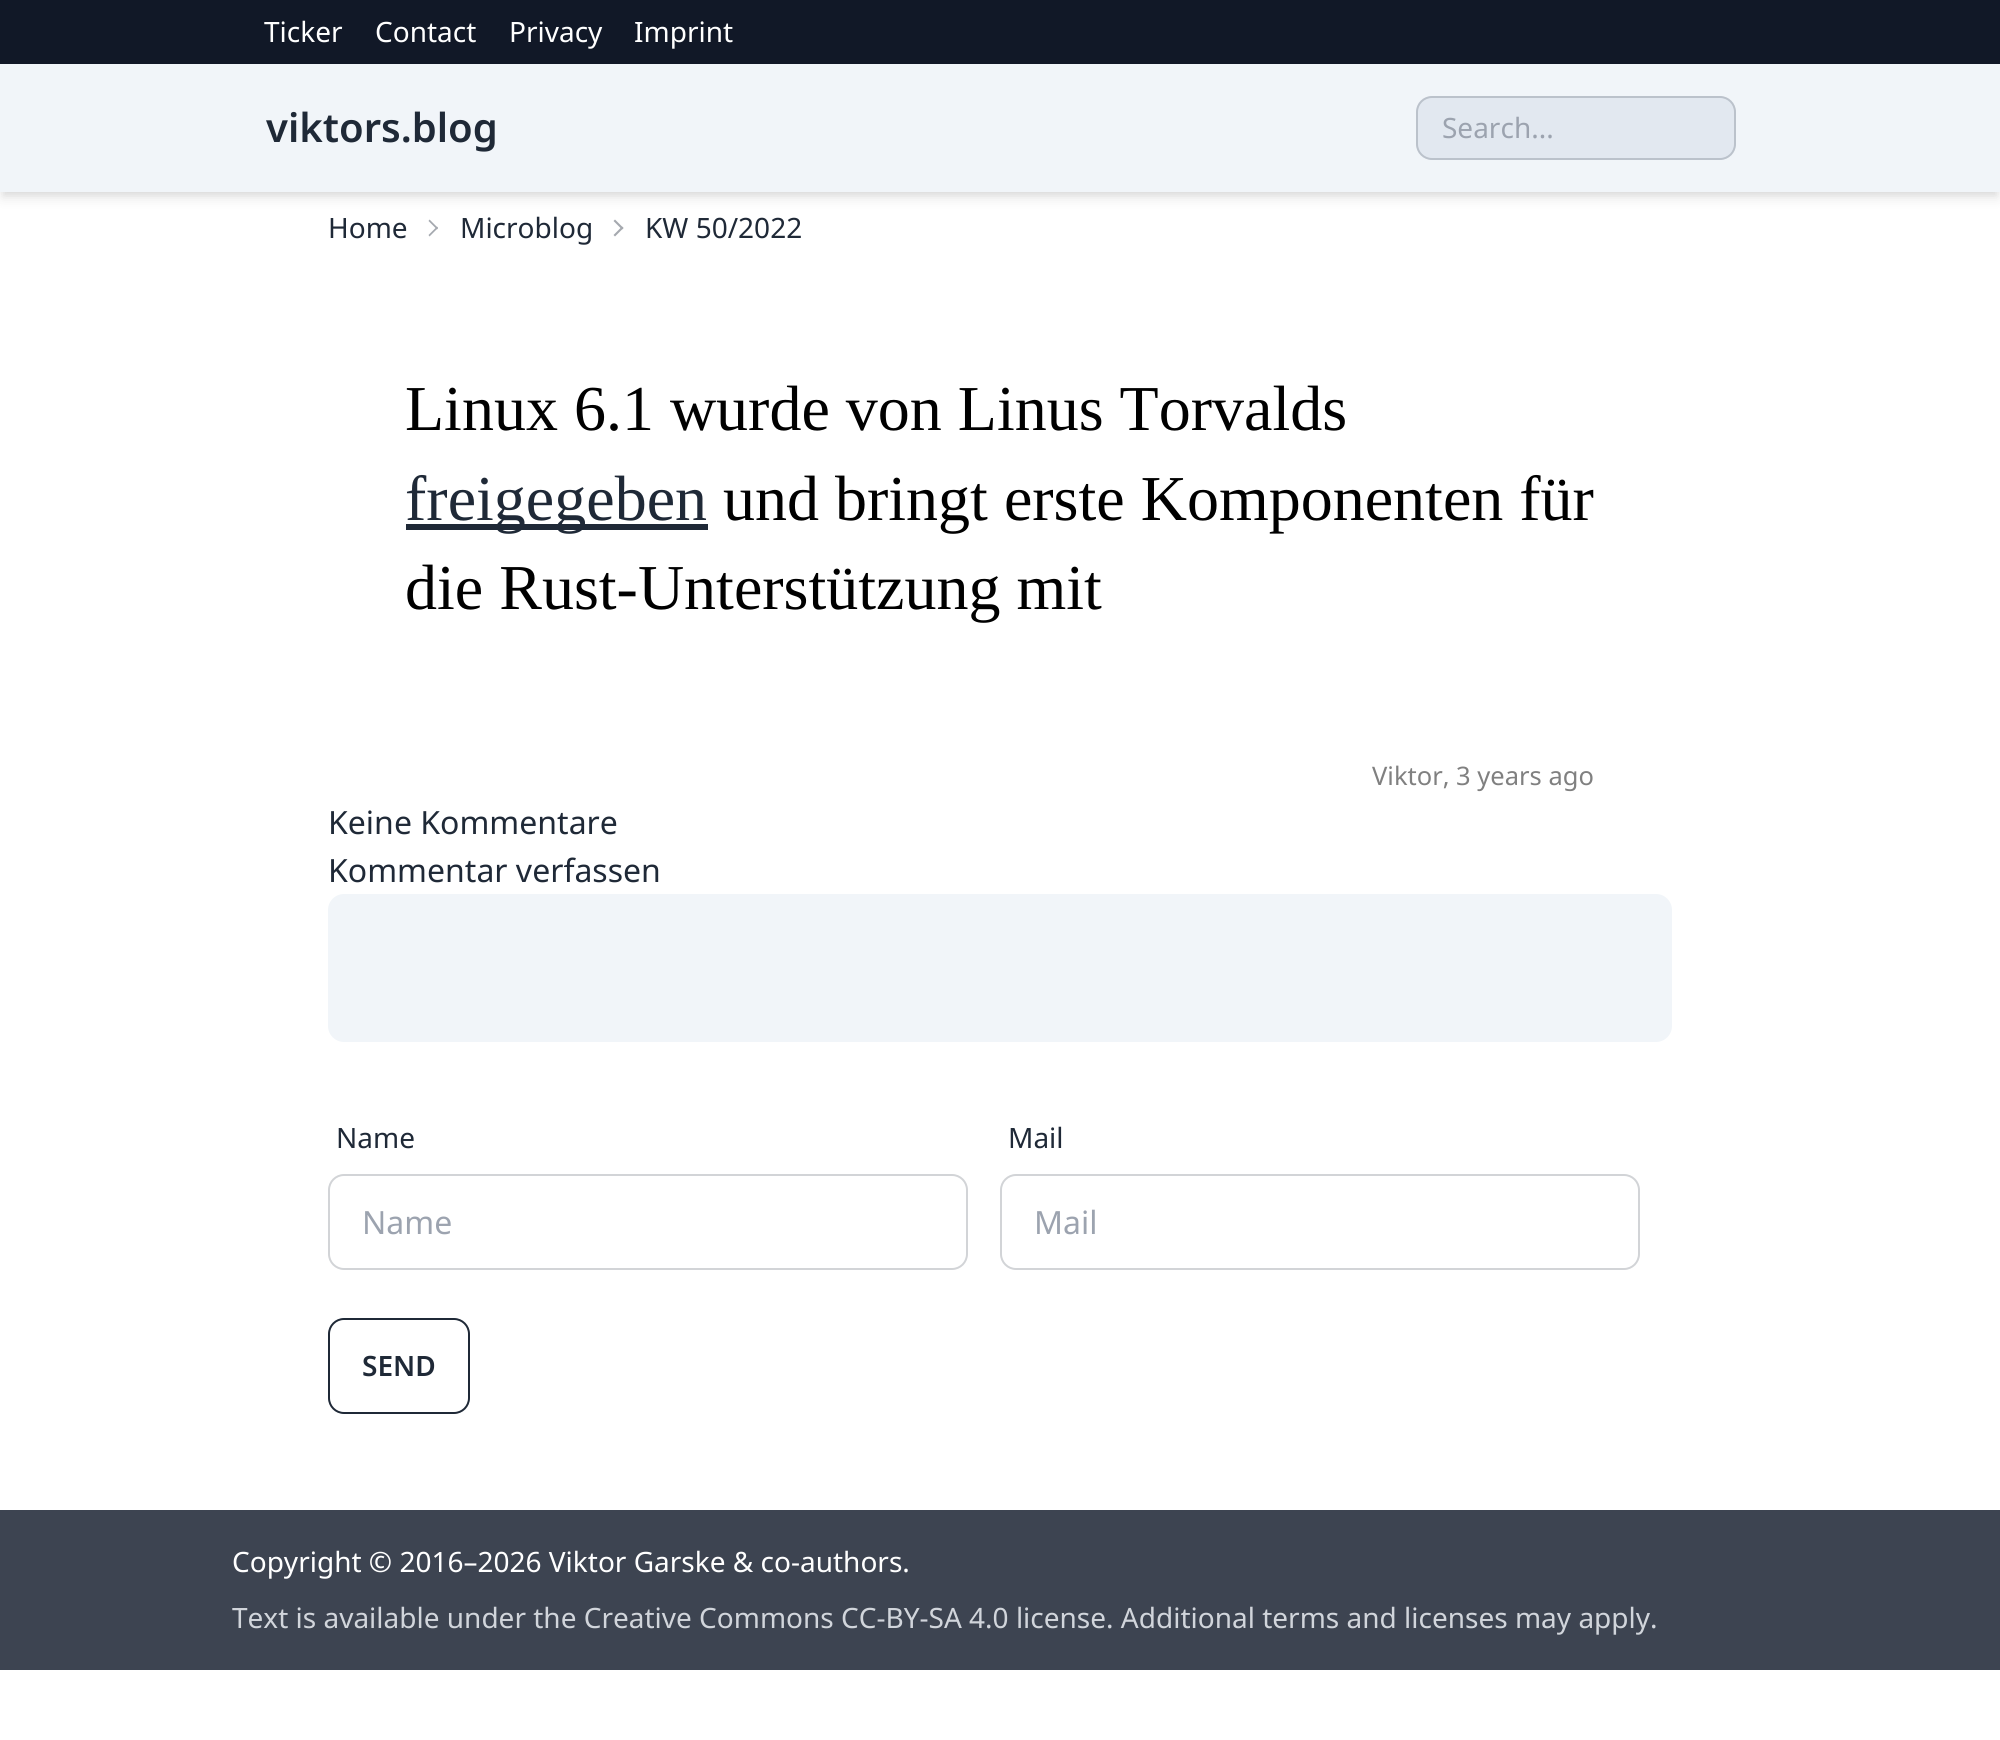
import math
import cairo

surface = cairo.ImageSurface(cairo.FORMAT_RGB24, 2000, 1740)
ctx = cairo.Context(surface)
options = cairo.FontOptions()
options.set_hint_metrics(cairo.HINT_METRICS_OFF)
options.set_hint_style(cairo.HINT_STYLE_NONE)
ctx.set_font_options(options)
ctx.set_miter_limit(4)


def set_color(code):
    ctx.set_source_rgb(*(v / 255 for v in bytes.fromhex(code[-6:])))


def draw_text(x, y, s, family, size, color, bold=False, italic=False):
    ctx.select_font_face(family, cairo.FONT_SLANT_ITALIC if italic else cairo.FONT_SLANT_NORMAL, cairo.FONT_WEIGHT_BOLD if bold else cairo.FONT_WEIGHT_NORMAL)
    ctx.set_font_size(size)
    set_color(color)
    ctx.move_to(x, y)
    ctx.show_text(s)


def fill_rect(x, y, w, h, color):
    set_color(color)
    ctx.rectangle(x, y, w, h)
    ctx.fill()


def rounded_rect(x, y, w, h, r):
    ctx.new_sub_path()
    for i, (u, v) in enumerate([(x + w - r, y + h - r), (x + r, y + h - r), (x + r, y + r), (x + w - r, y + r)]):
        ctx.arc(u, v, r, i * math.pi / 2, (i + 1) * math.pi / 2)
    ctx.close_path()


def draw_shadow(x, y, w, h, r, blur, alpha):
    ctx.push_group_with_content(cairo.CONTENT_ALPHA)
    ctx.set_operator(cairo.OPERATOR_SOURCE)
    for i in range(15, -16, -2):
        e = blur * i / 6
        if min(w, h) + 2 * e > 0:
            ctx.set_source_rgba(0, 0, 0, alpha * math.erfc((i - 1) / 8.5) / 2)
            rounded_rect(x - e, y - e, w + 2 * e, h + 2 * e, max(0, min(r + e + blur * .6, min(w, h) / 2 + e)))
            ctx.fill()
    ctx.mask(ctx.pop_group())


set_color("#ffffff")
ctx.paint()
fill_rect(0, 0, 2000, 64, "#111827")
draw_text(264, 42, "Ticker", "Noto Sans", 28, "#ffffff")
draw_text(375, 42, "Contact", "Noto Sans", 28, "#ffffff")
draw_text(509, 42, "Privacy", "Noto Sans", 28, "#ffffff")
draw_text(634, 42, "Imprint", "Noto Sans", 28, "#ffffff")
set_color("#000000")
draw_shadow(4, 72, 1992, 120, 0, 4, 0.1)
draw_shadow(2, 74, 1996, 124, 0, 6, 0.1)
fill_rect(0, 64, 2000, 128, "#f1f5f9")
draw_text(266, 142, "viktors.blog", "Noto Sans SemiBold", 40, "#1f2937")
set_color("#e2e8f0")
rounded_rect(1416, 96, 320, 64, 16)
ctx.fill()
rounded_rect(1417, 97, 318, 62, 15)
ctx.set_source_rgba(0.122, 0.161, 0.216, 0.2)
ctx.stroke()
draw_text(1442, 138, "Search...", "Noto Sans", 28, "#9ca3af")
draw_text(328, 238, "Home", "Noto Sans", 28, "#1f2937")
set_color("#a5a9af")
ctx.new_path()
ctx.move_to(429.5, 219.5)
ctx.line_to(438, 228)
ctx.line_to(437, 229.5)
ctx.line_to(428.5, 221)
ctx.close_path()
ctx.fill()
ctx.new_path()
ctx.move_to(437, 226.5)
ctx.line_to(438, 228)
ctx.line_to(429.5, 236.5)
ctx.line_to(428.5, 235)
ctx.close_path()
ctx.fill()
draw_text(460, 238, "Microblog", "Noto Sans", 28, "#1f2937")
set_color("#a5a9af")
ctx.new_path()
ctx.move_to(615, 219.5)
ctx.line_to(623.5, 228)
ctx.line_to(622, 229.5)
ctx.line_to(613.5, 221)
ctx.close_path()
ctx.fill()
ctx.new_path()
ctx.move_to(622, 226.5)
ctx.line_to(623.5, 228)
ctx.line_to(615, 236.5)
ctx.line_to(613.5, 235)
ctx.close_path()
ctx.fill()
draw_text(645, 238, "KW 50/2022", "Noto Sans", 28, "#1f2937")
draw_text(405, 430, "Linux 6.1 wurde von Linus Torvalds", "Liberation Serif", 64, "#000000")
fill_rect(406, 524, 302, 6, "#1f2937")
draw_text(405, 520, "freigegeben", "Liberation Serif", 64, "#1f2937")
draw_text(723, 520, "und bringt erste Komponenten für", "Liberation Serif", 64, "#000000")
draw_text(405, 609, "die Rust-Unterstützung mit", "Liberation Serif", 64, "#000000")
draw_text(1372, 785, "Viktor, 3 years ago", "Noto Sans", 25.5, "#808080")
draw_text(328, 834, "Keine Kommentare", "Noto Sans", 32, "#1f2937")
draw_text(328, 882, "Kommentar verfassen", "Noto Sans", 32, "#1f2937")
set_color("#f1f5f9")
rounded_rect(328, 894, 1344, 148, 16)
ctx.fill()
draw_text(336, 1148, "Name", "Noto Sans", 28, "#1f2937")
rounded_rect(329, 1175, 638, 94, 15)
set_color("#d2d4d7")
ctx.stroke()
draw_text(362, 1234, "Name", "Noto Sans", 32, "#9ca3af")
draw_text(1008, 1148, "Mail", "Noto Sans", 28, "#1f2937")
rounded_rect(1001, 1175, 638, 94, 15)
set_color("#d2d4d7")
ctx.stroke()
draw_text(1034, 1234, "Mail", "Noto Sans", 32, "#9ca3af")
rounded_rect(329, 1319, 140, 94, 15)
set_color("#1f2937")
ctx.stroke()
draw_text(362, 1376, "SEND", "Noto Sans SemiBold", 28, "#1f2937")
fill_rect(0, 1510, 2000, 160, "#3d4451")
draw_text(232, 1572, "Copyright © 2016–2026 Viktor Garske & co-authors.", "Noto Sans", 28, "#ffffff")
draw_text(232, 1628, "Text is available under the Creative Commons CC-BY-SA 4.0 license. Additional terms and licenses may apply.", "Noto Sans", 28, "#d1d5db")
surface.write_to_png("output.png")
